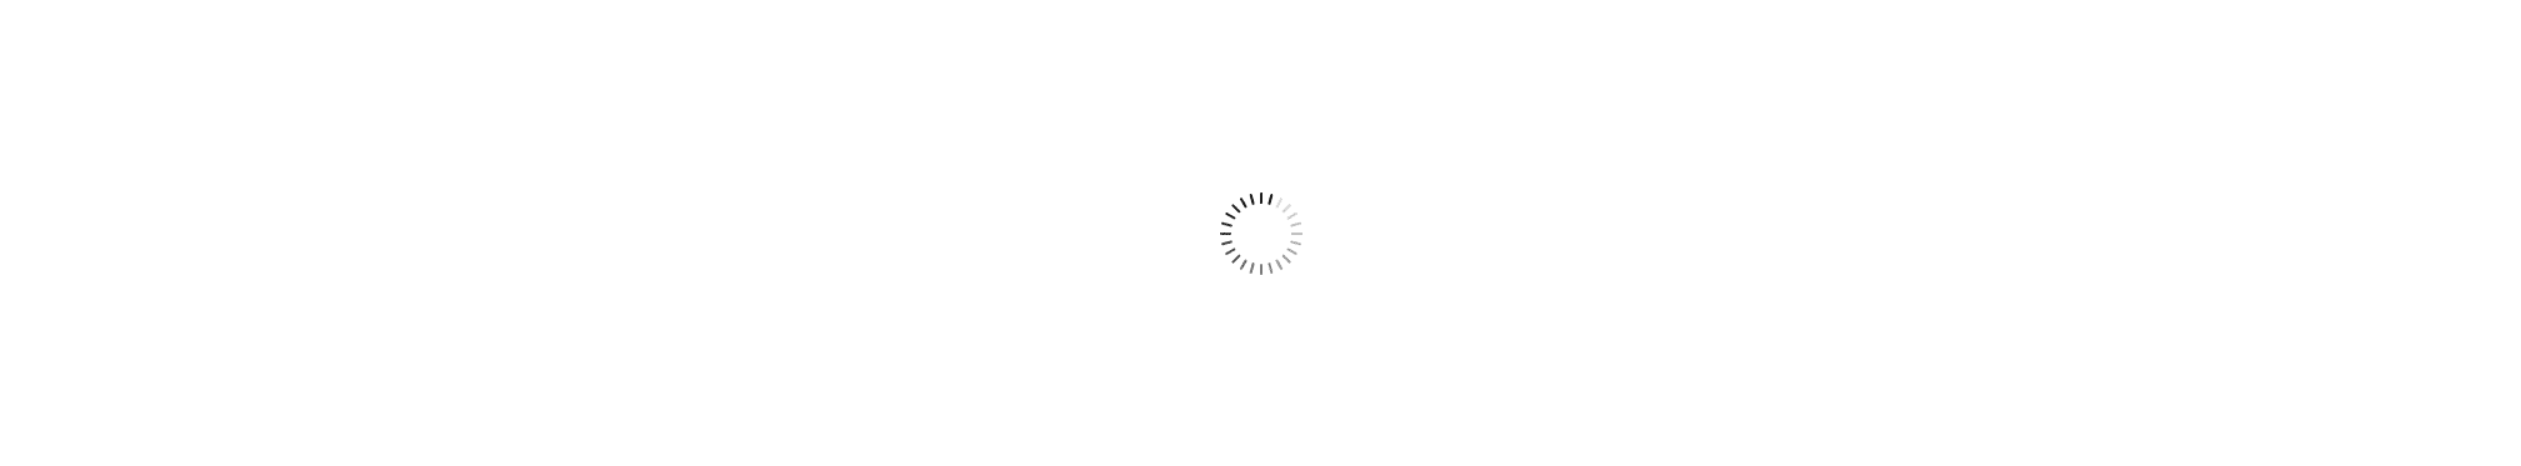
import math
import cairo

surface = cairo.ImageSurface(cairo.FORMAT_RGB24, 2521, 466)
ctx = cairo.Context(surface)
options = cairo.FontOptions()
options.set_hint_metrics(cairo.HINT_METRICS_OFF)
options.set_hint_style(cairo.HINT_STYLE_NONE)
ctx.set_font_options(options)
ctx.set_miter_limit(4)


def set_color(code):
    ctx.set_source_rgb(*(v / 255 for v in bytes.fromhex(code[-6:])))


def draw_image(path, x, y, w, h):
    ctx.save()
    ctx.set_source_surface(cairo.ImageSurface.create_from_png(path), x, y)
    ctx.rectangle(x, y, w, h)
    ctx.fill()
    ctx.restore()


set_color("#ffffff")
ctx.paint()
draw_image("assets/img1.png", 1220, 192, 83, 83)
surface.write_to_png("output.png")
